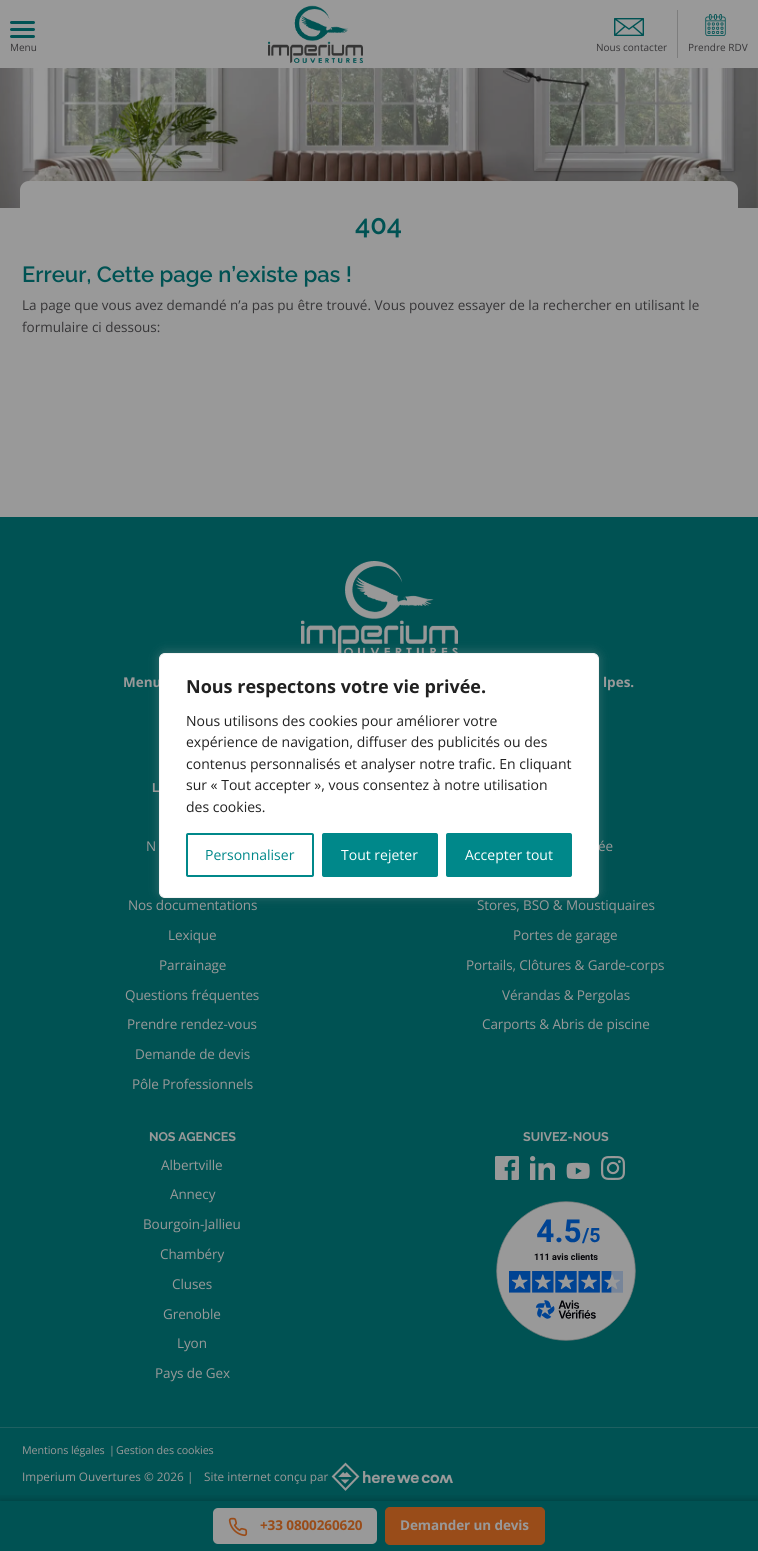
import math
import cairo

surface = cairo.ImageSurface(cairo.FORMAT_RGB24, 758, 1551)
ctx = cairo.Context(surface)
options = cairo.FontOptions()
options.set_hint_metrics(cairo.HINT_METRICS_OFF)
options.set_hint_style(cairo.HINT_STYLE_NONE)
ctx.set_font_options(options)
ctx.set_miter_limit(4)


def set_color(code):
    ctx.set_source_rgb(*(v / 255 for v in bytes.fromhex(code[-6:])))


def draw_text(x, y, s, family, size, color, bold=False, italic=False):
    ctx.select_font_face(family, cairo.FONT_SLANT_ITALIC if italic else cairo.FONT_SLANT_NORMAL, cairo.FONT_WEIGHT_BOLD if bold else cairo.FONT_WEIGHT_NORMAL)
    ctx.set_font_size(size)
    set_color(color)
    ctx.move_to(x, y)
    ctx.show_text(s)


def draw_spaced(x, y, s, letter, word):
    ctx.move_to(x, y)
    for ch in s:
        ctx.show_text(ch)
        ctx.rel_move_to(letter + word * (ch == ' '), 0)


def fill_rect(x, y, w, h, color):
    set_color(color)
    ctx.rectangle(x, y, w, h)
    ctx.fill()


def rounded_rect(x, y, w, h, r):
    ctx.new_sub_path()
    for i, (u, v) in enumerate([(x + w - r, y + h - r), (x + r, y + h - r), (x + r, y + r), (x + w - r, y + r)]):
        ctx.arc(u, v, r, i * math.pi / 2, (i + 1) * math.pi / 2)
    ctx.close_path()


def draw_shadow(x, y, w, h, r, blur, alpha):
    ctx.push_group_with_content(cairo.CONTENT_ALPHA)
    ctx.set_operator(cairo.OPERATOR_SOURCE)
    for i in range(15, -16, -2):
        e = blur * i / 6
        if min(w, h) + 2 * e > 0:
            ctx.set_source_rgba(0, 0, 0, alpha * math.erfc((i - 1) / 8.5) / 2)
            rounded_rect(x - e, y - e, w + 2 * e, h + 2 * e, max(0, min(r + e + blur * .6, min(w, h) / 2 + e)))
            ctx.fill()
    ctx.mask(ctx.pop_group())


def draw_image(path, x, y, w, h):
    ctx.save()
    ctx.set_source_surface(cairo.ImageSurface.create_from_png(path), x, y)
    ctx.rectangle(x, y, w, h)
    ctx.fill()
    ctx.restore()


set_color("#999999")
ctx.paint()
set_color("#005253")
rounded_rect(10, 28, 25, 3, 1.5)
ctx.fill()
rounded_rect(10, 21, 25, 3, 1.5)
ctx.fill()
rounded_rect(10, 35, 25, 3, 1.5)
ctx.fill()
draw_text(10, 51, "Menu", "Open Sans", 10, "#363537")
draw_image("assets/img1.png", 268, 5, 95, 58)
fill_rect(677, 10, 1, 48, "#7d7d7d")
draw_image("assets/img2.png", 614, 18, 30, 18)
draw_text(596, 51, "Nous contacter", "Open Sans", 10, "#363537")
draw_image("assets/img3.png", 705, 14, 21, 22)
draw_text(688, 51, "Prendre RDV", "Open Sans", 10, "#363537")
draw_image("assets/img4.png", 0, 68, 758, 140)
set_color("#999999")
ctx.new_path()
ctx.move_to(29, 181)
ctx.line_to(729, 181)
ctx.curve_to(734, 181, 738, 185, 738, 190)
ctx.line_to(738, 240)
ctx.line_to(20, 240)
ctx.line_to(20, 190)
ctx.curve_to(20, 185, 24, 181, 29, 181)
ctx.close_path()
ctx.fill()
draw_text(355, 234, "404", "Raleway SemiBold", 27, "#005253")
draw_text(22, 282, "Erreur, Cette page n’existe pas !", "Raleway SemiBold", 22, "#005253")
draw_text(22, 310, "La page que vous avez demandé n’a pas pu être trouvé. Vous pouvez essayer de la rechercher en utilisant le", "Open Sans", 13.5, "#363537")
draw_text(22, 332, "formulaire ci dessous:", "Open Sans", 13.5, "#363537")
fill_rect(0, 517, 758, 1034, "#005253")
draw_image("assets/img5.png", 301, 561, 157, 92)
draw_text(123, 687, "Menu", "Open Sans", 13.5, "#999999", bold=True)
draw_text(603, 687, "lpes.", "Open Sans", 13.5, "#999999", bold=True)
ctx.select_font_face("Raleway", cairo.FONT_SLANT_NORMAL, cairo.FONT_WEIGHT_BOLD)
ctx.set_font_size(12.5)
draw_spaced(152, 792, "L", -0.1, 0)
ctx.select_font_face("Open Sans")
ctx.set_font_size(13.5)
draw_spaced(146, 851, "N", -0.1, 0)
draw_spaced(128, 910, "Nos documentations", -0.1, 0)
draw_spaced(168, 940, "Lexique", -0.1, 0)
draw_spaced(159, 970, "Parrainage", -0.1, 0)
draw_spaced(125, 1000, "Questions fréquentes", -0.1, 0)
draw_spaced(127, 1029, "Prendre rendez-vous", -0.1, 0)
draw_spaced(135, 1059, "Demande de devis", -0.1, 0)
draw_spaced(132, 1089, "Pôle Professionnels", -0.1, 0)
draw_spaced(598, 851, "ée", -0.1, 0)
draw_spaced(477, 910, "Stores, BSO & Moustiquaires", -0.1, 0)
draw_spaced(513, 940, "Portes de garage", -0.1, 0)
draw_spaced(466, 970, "Portails, Clôtures & Garde-corps", -0.1, 0)
draw_spaced(502, 1000, "Vérandas & Pergolas", -0.1, 0)
draw_spaced(482, 1029, "Carports & Abris de piscine", -0.1, 0)
ctx.select_font_face("Raleway", cairo.FONT_SLANT_NORMAL, cairo.FONT_WEIGHT_BOLD)
ctx.set_font_size(12.5)
draw_spaced(149, 1141, "NOS AGENCES", -0.1, 0)
ctx.select_font_face("Open Sans")
ctx.set_font_size(13.5)
draw_spaced(161, 1170, "Albertville", -0.1, 0)
draw_spaced(170, 1199, "Annecy", -0.1, 0)
draw_spaced(143, 1229, "Bourgoin-Jallieu", -0.1, 0)
draw_spaced(160, 1259, "Chambéry", -0.1, 0)
draw_spaced(172, 1289, "Cluses", -0.1, 0)
draw_spaced(163, 1319, "Grenoble", -0.1, 0)
draw_spaced(177, 1348, "Lyon", -0.1, 0)
draw_spaced(155, 1378, "Pays de Gex", -0.1, 0)
draw_text(523, 1141, "SUIVEZ-NOUS", "Raleway", 12.5, "#999999", bold=True)
draw_image("assets/img6.png", 495, 1156, 24, 24)
draw_image("assets/img7.png", 530, 1156, 25, 24)
draw_image("assets/img8.png", 566, 1162, 24, 17)
draw_image("assets/img9.png", 601, 1156, 24, 24)
draw_image("assets/img10.png", 496, 1201, 140, 140)
fill_rect(0, 1427, 758, 1, "#1f6061")
ctx.select_font_face("Open Sans")
ctx.set_font_size(10.75)
set_color("#999999")
draw_spaced(22, 1454, "Mentions légales", -0.1, 0)
draw_spaced(109, 1454, "|", -0.1, 0)
draw_spaced(116, 1454, "Gestion des cookies", -0.1, 0)
draw_text(22, 1481, "Imperium Ouvertures © 2026", "Open Sans", 11.75, "#999999")
draw_text(187, 1481, "|", "Open Sans", 11.75, "#999999")
draw_text(204, 1481, "Site internet conçu par", "Open Sans", 11.75, "#999999")
ctx.new_path()
ctx.move_to(345.5, 1464)
ctx.line_to(358, 1476.5)
ctx.line_to(345.5, 1489.5)
ctx.line_to(333, 1476.5)
ctx.close_path()
ctx.stroke()
draw_image("assets/img11.png", 338, 1472, 14, 12)
draw_image("assets/img12.png", 363, 1471, 90, 12)
ctx.save()
ctx.rectangle(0, 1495, 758, 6)
ctx.clip()
set_color("#000000")
draw_shadow(0, 1499, 758, 50, 0, 3.5, 0.2)
ctx.restore()
rounded_rect(213, 1508, 164, 36, 5)
ctx.fill()
draw_image("assets/img13.png", 228, 1517, 20, 20)
ctx.select_font_face("Open Sans", cairo.FONT_SLANT_NORMAL, cairo.FONT_WEIGHT_BOLD)
ctx.set_font_size(13.5)
set_color("#994c19")
draw_spaced(260, 1530, "+33 0800260620", -0.1, 0)
rounded_rect(385.5, 1507.5, 159, 37, 4.5)
ctx.fill_preserve()
ctx.set_line_width(1)
ctx.stroke()
set_color("#999999")
draw_spaced(400, 1530, "Demander un devis", -0.1, 0)
set_color("#acabab")
draw_shadow(159, 652, 440, 245, 6, 5, 0.3)
set_color("#ffffff")
rounded_rect(159.5, 653.5, 439, 244, 5.5)
ctx.fill_preserve()
set_color("#f4f4f4")
ctx.stroke()
draw_text(186, 693, "Nous respectons votre vie privée.", "Open Sans", 18, "#212121", bold=True)
draw_text(186, 726, "Nous utilisons des cookies pour améliorer votre", "Open Sans", 14, "#212121")
draw_text(186, 747, "expérience de navigation, diffuser des publicités ou des", "Open Sans", 14, "#212121")
draw_text(186, 769, "contenus personnalisés et analyser notre trafic. En cliquant", "Open Sans", 14, "#212121")
draw_text(186, 790, "sur « Tout accepter », vous consentez à notre utilisation", "Open Sans", 14, "#212121")
draw_text(186, 812, "des cookies.", "Open Sans", 14, "#212121")
rounded_rect(187, 834, 126, 42, 1)
set_color("#00888a")
ctx.set_line_width(2)
ctx.stroke()
draw_text(205, 860, "Personnaliser", "Open Sans", 14, "#00888a")
rounded_rect(323, 834, 114, 42, 1)
ctx.fill_preserve()
ctx.stroke()
draw_text(341, 860, "Tout rejeter", "Open Sans", 14, "#ffffff")
set_color("#00888a")
rounded_rect(447, 834, 124, 42, 1)
ctx.fill_preserve()
ctx.stroke()
draw_text(465, 860, "Accepter tout", "Open Sans", 14, "#ffffff")
surface.write_to_png("output.png")
